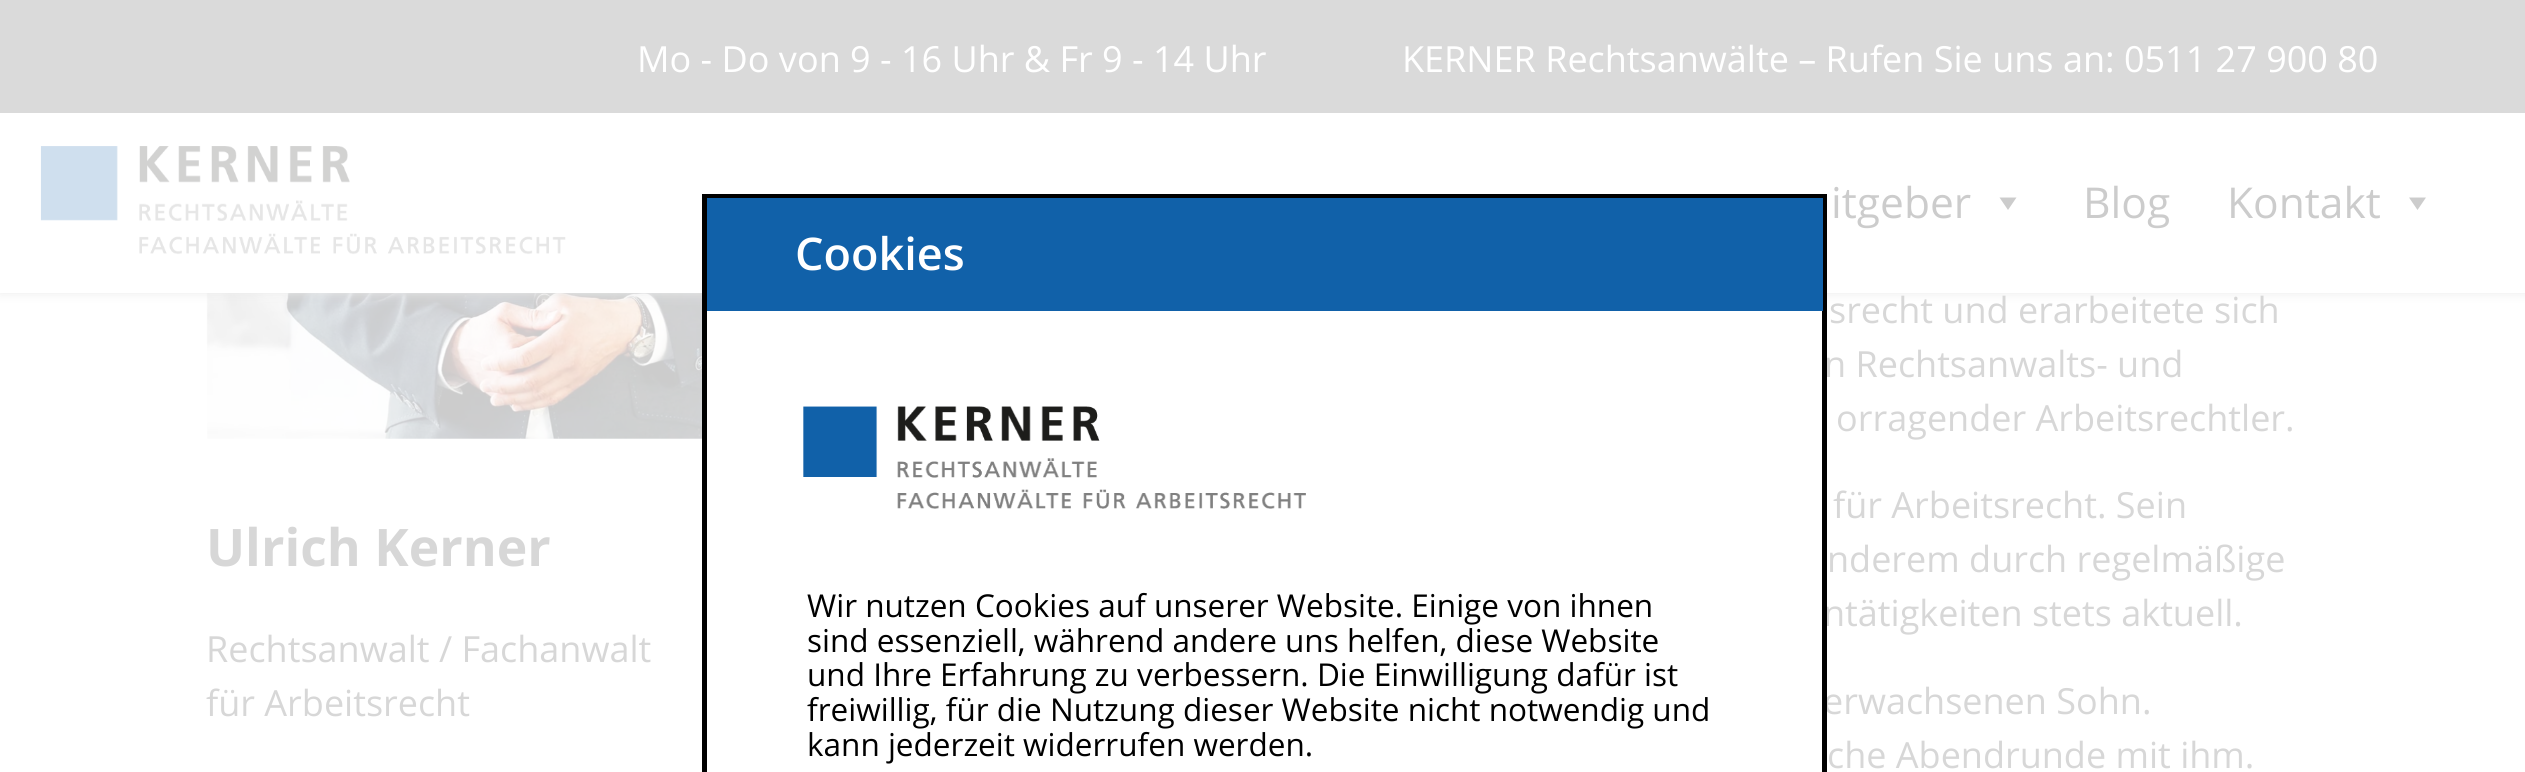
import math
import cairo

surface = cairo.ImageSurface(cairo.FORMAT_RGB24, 2525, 772)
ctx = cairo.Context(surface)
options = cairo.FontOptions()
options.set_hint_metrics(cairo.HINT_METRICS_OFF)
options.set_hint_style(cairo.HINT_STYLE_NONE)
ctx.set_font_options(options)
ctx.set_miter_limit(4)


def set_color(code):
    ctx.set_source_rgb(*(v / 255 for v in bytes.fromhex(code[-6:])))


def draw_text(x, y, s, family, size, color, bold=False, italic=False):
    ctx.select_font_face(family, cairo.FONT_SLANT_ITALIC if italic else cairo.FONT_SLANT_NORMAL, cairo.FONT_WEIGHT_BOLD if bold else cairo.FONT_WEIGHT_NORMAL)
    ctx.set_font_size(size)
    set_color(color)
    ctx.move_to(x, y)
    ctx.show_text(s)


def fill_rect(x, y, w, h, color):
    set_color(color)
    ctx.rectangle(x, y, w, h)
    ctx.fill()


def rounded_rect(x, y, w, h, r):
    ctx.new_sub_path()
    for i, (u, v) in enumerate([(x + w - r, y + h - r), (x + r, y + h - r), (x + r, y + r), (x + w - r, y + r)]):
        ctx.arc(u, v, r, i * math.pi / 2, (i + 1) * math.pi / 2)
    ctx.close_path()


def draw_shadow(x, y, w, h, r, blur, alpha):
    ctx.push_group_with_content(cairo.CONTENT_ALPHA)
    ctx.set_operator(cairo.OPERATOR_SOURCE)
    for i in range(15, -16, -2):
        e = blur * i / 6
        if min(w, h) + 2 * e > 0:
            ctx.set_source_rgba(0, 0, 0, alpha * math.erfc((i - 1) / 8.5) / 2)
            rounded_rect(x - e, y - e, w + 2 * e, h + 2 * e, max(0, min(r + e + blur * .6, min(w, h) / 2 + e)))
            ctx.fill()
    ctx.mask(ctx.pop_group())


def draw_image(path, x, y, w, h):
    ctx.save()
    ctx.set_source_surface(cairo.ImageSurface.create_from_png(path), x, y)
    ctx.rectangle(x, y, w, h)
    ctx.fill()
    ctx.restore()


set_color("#ffffff")
ctx.paint()
draw_image("assets/img3.png", 206, 293, 496, 146)
set_color("#ebebeb")
draw_shadow(0, 0, 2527, 293, 0, 5.5, 1)
fill_rect(0, 113, 2525, 180, "#ffffff")
fill_rect(0, 0, 2525, 113, "#dadada")
draw_text(637, 72, "Mo - Do von 9 - 16 Uhr & Fr 9 - 14 Uhr", "Open Sans", 36, "#ffffff")
draw_text(1402, 72, "KERNER Rechtsanwälte – Rufen Sie uns an: 0511 27 900 80", "Open Sans", 36, "#ffffff")
draw_image("assets/img1.png", 40, 146, 526, 109)
draw_text(1831, 218, "itgeber", "Open Sans", 42.5, "#cccccc")
ctx.new_path()
ctx.move_to(2016.5, 197.5)
ctx.line_to(2008, 210)
ctx.line_to(1999.5, 197.5)
ctx.close_path()
ctx.fill()
draw_text(2083, 218, "Blog", "Open Sans", 42.5, "#cccccc")
draw_text(2227, 218, "Kontakt", "Open Sans", 42.5, "#cccccc")
ctx.new_path()
ctx.move_to(2426, 197.5)
ctx.line_to(2417.5, 210)
ctx.line_to(2409, 197.5)
ctx.close_path()
ctx.fill()
draw_text(1824, 377, "n Rechtsanwalts- und", "Open Sans", 36, "#d7d7d7")
draw_text(1823, 626, "ntätigkeiten stets aktuell.", "Open Sans", 36, "#d7d7d7")
draw_text(1823, 714, "erwachsenen Sohn.", "Open Sans", 36, "#d7d7d7")
ctx.rectangle(704.5, 196.5, 1120, 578)
set_color("#000000")
ctx.set_line_width(5)
ctx.stroke()
fill_rect(707, 198, 1116, 113, "#1161a9")
draw_text(795, 270, "Cookies", "Open Sans SemiBold", 45, "#ffffff")
draw_image("assets/img2.png", 803, 406, 503, 103)
draw_text(807, 617, "Wir nutzen Cookies auf unserer Website. Einige von ihnen", "Open Sans", 31.5, "#000000")
draw_text(807, 652, "sind essenziell, während andere uns helfen, diese Website", "Open Sans", 31.5, "#000000")
draw_text(807, 686, "und Ihre Erfahrung zu verbessern. Die Einwilligung dafür ist", "Open Sans", 31.5, "#000000")
draw_text(807, 721, "freiwillig, für die Nutzung dieser Website nicht notwendig und", "Open Sans", 31.5, "#000000")
draw_text(807, 756, "kann jederzeit widerrufen werden.", "Open Sans", 31.5, "#000000")
draw_text(206, 566, "Ulrich Kerner", "Open Sans", 51.75, "#d7d7d7", bold=True)
draw_text(206, 662, "Rechtsanwalt / Fachanwalt", "Open Sans", 36, "#d7d7d7")
draw_text(206, 716, "für Arbeitsrecht", "Open Sans", 36, "#d7d7d7")
draw_text(1829, 323, "srecht und erarbeitete sich", "Open Sans", 36, "#d7d7d7")
draw_text(1836, 431, "orragender Arbeitsrechtler.", "Open Sans", 36, "#d7d7d7")
draw_text(1833, 518, "für Arbeitsrecht. Sein", "Open Sans", 36, "#d7d7d7")
draw_text(1827, 572, "nderem durch regelmäßige", "Open Sans", 36, "#d7d7d7")
draw_text(1827, 768, "che Abendrunde mit ihm.", "Open Sans", 36, "#d7d7d7")
surface.write_to_png("output.png")
